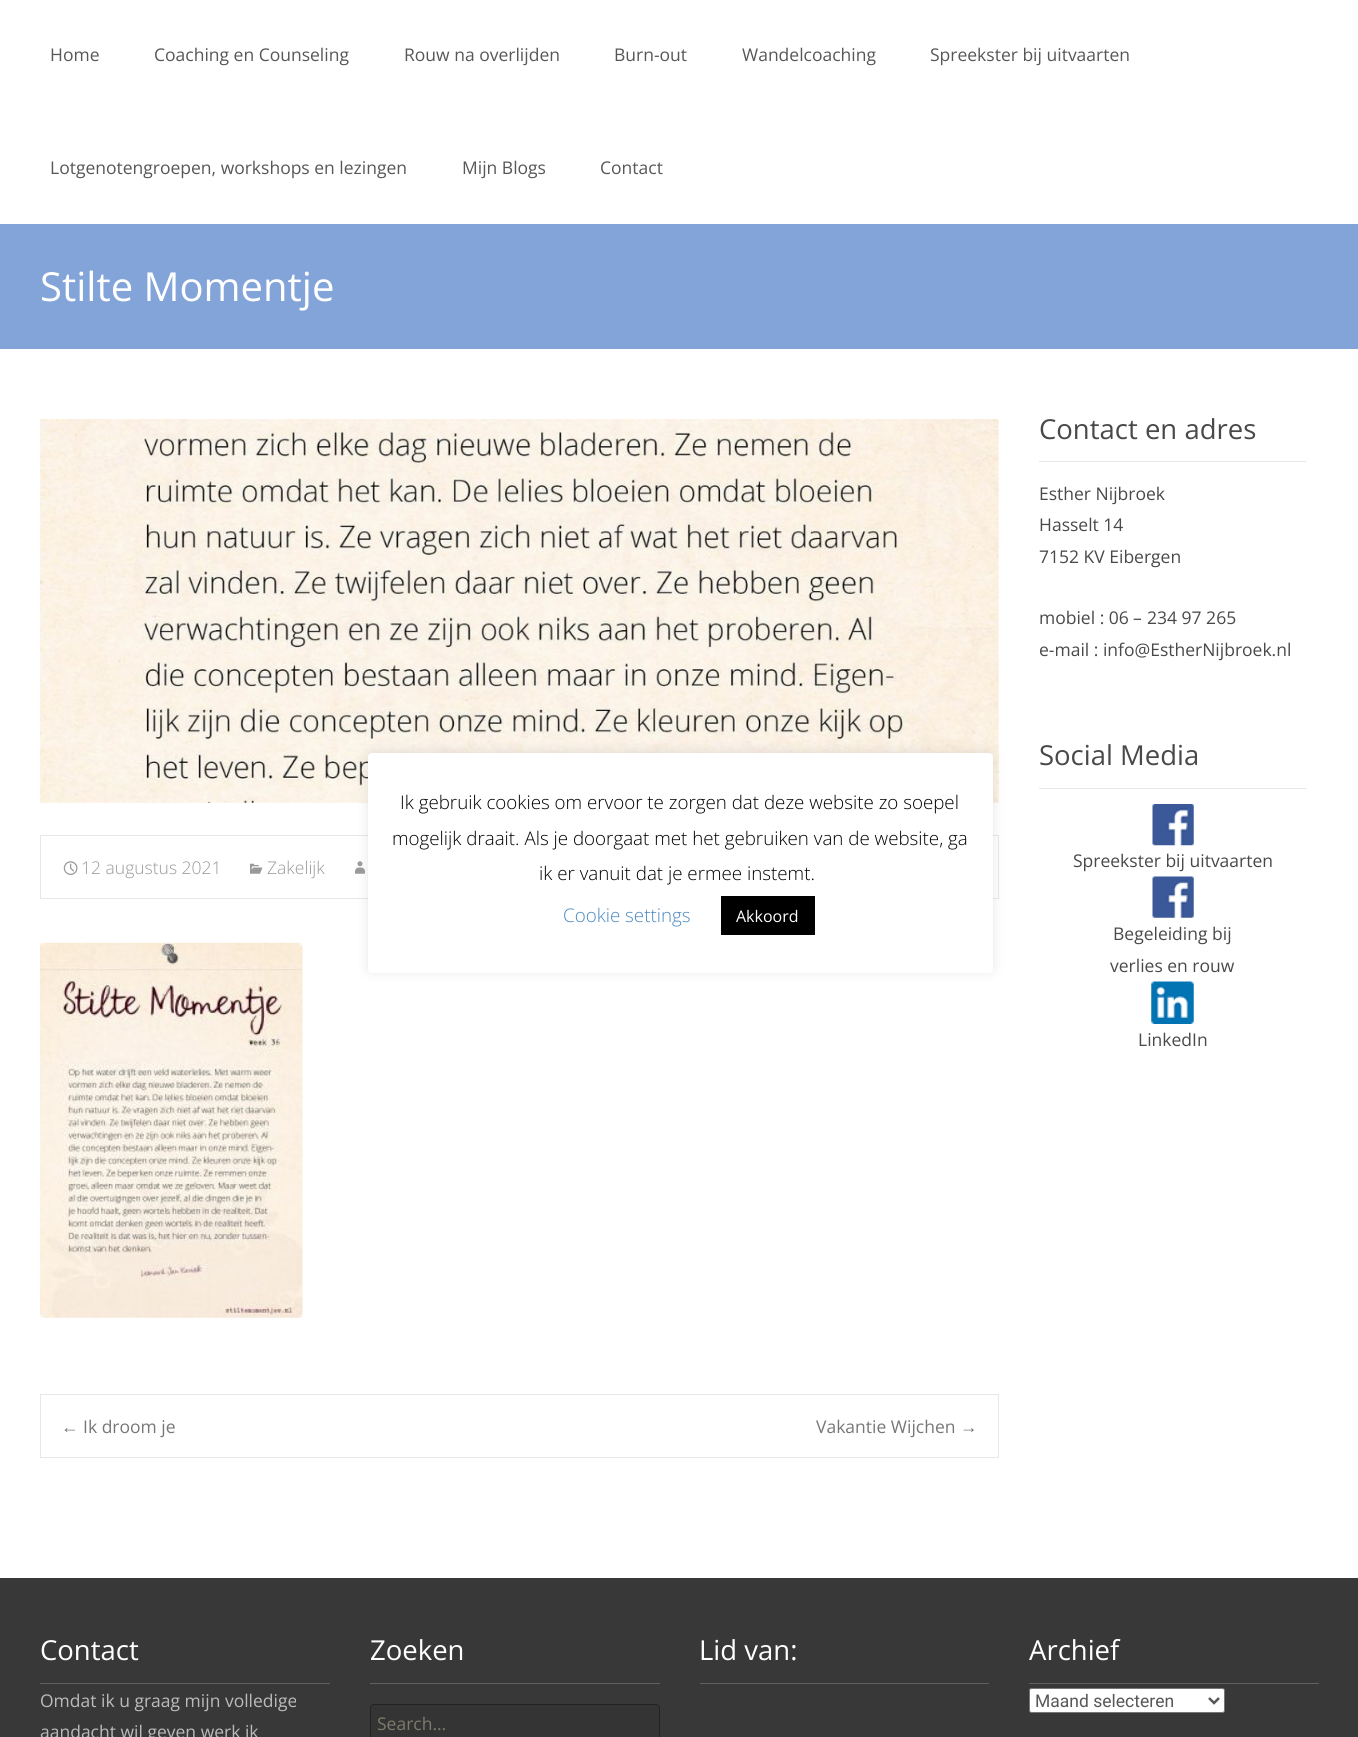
import math
import cairo

surface = cairo.ImageSurface(cairo.FORMAT_RGB24, 1358, 1737)
ctx = cairo.Context(surface)
options = cairo.FontOptions()
options.set_hint_metrics(cairo.HINT_METRICS_OFF)
options.set_hint_style(cairo.HINT_STYLE_NONE)
ctx.set_font_options(options)
ctx.set_miter_limit(4)


def set_color(code):
    ctx.set_source_rgb(*(v / 255 for v in bytes.fromhex(code[-6:])))


def draw_text(x, y, s, family, size, color, bold=False, italic=False):
    ctx.select_font_face(family, cairo.FONT_SLANT_ITALIC if italic else cairo.FONT_SLANT_NORMAL, cairo.FONT_WEIGHT_BOLD if bold else cairo.FONT_WEIGHT_NORMAL)
    ctx.set_font_size(size)
    set_color(color)
    ctx.move_to(x, y)
    ctx.show_text(s)


def fill_rect(x, y, w, h, color):
    set_color(color)
    ctx.rectangle(x, y, w, h)
    ctx.fill()


def rounded_rect(x, y, w, h, r):
    ctx.new_sub_path()
    for i, (u, v) in enumerate([(x + w - r, y + h - r), (x + r, y + h - r), (x + r, y + r), (x + w - r, y + r)]):
        ctx.arc(u, v, r, i * math.pi / 2, (i + 1) * math.pi / 2)
    ctx.close_path()


def draw_shadow(x, y, w, h, r, blur, alpha):
    ctx.push_group_with_content(cairo.CONTENT_ALPHA)
    ctx.set_operator(cairo.OPERATOR_SOURCE)
    for i in range(15, -16, -2):
        e = blur * i / 6
        if min(w, h) + 2 * e > 0:
            ctx.set_source_rgba(0, 0, 0, alpha * math.erfc((i - 1) / 8.5) / 2)
            rounded_rect(x - e, y - e, w + 2 * e, h + 2 * e, max(0, min(r + e + blur * .6, min(w, h) / 2 + e)))
            ctx.fill()
    ctx.mask(ctx.pop_group())


def draw_image(path, x, y, w, h):
    ctx.save()
    ctx.set_source_surface(cairo.ImageSurface.create_from_png(path), x, y)
    ctx.rectangle(x, y, w, h)
    ctx.fill()
    ctx.restore()


set_color("#ffffff")
ctx.paint()
draw_text(50, 61, "Home", "Open Sans", 17.5, "#575757")
draw_text(154, 61, "Coaching en Counseling", "Open Sans", 17.5, "#575757")
draw_text(404, 61, "Rouw na overlijden", "Open Sans", 17.5, "#575757")
draw_text(614, 61, "Burn-out", "Open Sans", 17.5, "#575757")
draw_text(742, 61, "Wandelcoaching", "Open Sans", 17.5, "#575757")
draw_text(930, 61, "Spreekster bij uitvaarten", "Open Sans", 17.5, "#575757")
draw_text(50, 174, "Lotgenotengroepen, workshops en lezingen", "Open Sans", 17.5, "#575757")
draw_text(462, 174, "Mijn Blogs", "Open Sans", 17.5, "#575757")
draw_text(600, 174, "Contact", "Open Sans", 17.5, "#575757")
fill_rect(0, 224, 1358, 125, "#82a4d9")
draw_text(40, 301, "Stilte Momentje", "Open Sans", 40, "#ffffff")
fill_rect(1039, 461, 267, 1, "#e7e7e7")
draw_text(1039, 439, "Contact en adres", "Open Sans", 27.5, "#494949")
draw_text(1039, 500, "Esther Nijbroek", "Open Sans", 17.5, "#494949")
draw_text(1039, 531, "Hasselt 14", "Open Sans", 17.5, "#494949")
draw_text(1039, 563, "7152 KV Eibergen", "Open Sans", 17.5, "#494949")
draw_text(1039, 624, "mobiel : 06", "Open Sans", 17.5, "#494949")
draw_text(1133, 624, "–", "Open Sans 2", 17.5, "#494949")
draw_text(1147, 624, "234 97 265", "Open Sans", 17.5, "#494949")
draw_text(1039, 656, "e-mail : info@EstherNijbroek.nl", "Open Sans", 17.5, "#494949")
fill_rect(1039, 788, 267, 1, "#e7e7e7")
draw_text(1039, 765, "Social Media", "Open Sans", 27.5, "#494949")
draw_image("assets/img1.png", 1152, 804, 42, 42)
draw_text(1073, 867, "Spreekster bij uitvaarten", "Open Sans", 17.5, "#494949")
draw_image("assets/img2.png", 1152, 876, 42, 42)
draw_text(1113, 940, "Begeleiding bij", "Open Sans", 17.5, "#494949")
draw_text(1110, 972, "verlies en rouw", "Open Sans", 17.5, "#494949")
draw_image("assets/img3.png", 1151, 981, 43, 43)
draw_text(1138, 1046, "LinkedIn", "Open Sans", 17.5, "#494949")
draw_image("assets/img4.png", 40, 419, 959, 384)
ctx.rectangle(40.5, 835.5, 958, 63)
set_color("#e7e7e7")
ctx.set_line_width(1)
ctx.stroke()
draw_image("assets/img5.png", 63, 861, 15, 14)
draw_text(81, 874, "12 augustus 2021", "Open Sans Light", 17.5, "#999999")
draw_image("assets/img6.png", 250, 863, 13, 11)
draw_text(267, 874, "Zakelijk", "Open Sans Light", 17.5, "#999999")
draw_image("assets/img7.png", 355, 861, 10, 13)
draw_image("assets/img8.png", 40, 942, 263, 376)
ctx.rectangle(40.5, 1394.5, 958, 63)
set_color("#e7e7e7")
ctx.stroke()
draw_text(61, 1433, "←", "Liberation Serif", 17.5, "#777777")
draw_text(83, 1433, "Ik droom je", "Open Sans", 17.5, "#777777")
draw_text(816, 1433, "Vakantie Wijchen", "Open Sans", 17.5, "#777777")
draw_text(960, 1433, "→", "Liberation Serif", 17.5, "#777777")
fill_rect(0, 1578, 1358, 159, "#383838")
fill_rect(40, 1683, 290, 1, "#606060")
draw_text(40, 1660, "Contact", "Open Sans", 27.5, "#ffffff")
draw_text(40, 1707, "Omdat ik u graag mijn volledige", "Open Sans", 17.5, "#bbbbbb")
draw_text(40, 1738, "aandacht wil geven werk ik", "Open Sans", 17.5, "#bbbbbb")
fill_rect(370, 1683, 290, 1, "#606060")
draw_text(370, 1660, "Zoeken", "Open Sans", 27.5, "#ffffff")
set_color("#343434")
rounded_rect(370.5, 1704.5, 289, 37, 3.5)
ctx.fill_preserve()
set_color("#222222")
ctx.stroke()
draw_text(377, 1730, "Search...", "Open Sans", 17.5, "#7d7b6d")
fill_rect(700, 1683, 289, 1, "#606060")
draw_text(699, 1660, "Lid van:", "Open Sans", 27.5, "#ffffff")
fill_rect(1029, 1683, 290, 1, "#606060")
draw_text(1029, 1660, "Archief", "Open Sans", 27.5, "#ffffff")
rounded_rect(1029.5, 1688.5, 195, 24, 2)
ctx.fill_preserve()
set_color("#767676")
ctx.stroke()
ctx.new_path()
ctx.move_to(1209, 1698)
ctx.line_to(1214, 1703)
ctx.line_to(1219, 1698)
set_color("#575757")
ctx.set_line_width(2.5)
ctx.stroke()
draw_text(1035, 1707, "Maand selecteren", "Roboto", 17.5, "#575757")
set_color("#acabab")
draw_shadow(368, 751, 625, 220, 4, 6, 0.3)
set_color("#ffffff")
rounded_rect(368, 753, 625, 220, 4)
ctx.fill()
draw_text(400, 809, "Ik gebruik cookies om ervoor te zorgen dat deze website zo soepel", "Open Sans Light", 18.75, "#000000")
draw_text(392, 845, "mogelijk draait. Als je doorgaat met het gebruiken van de website, ga", "Open Sans Light", 18.75, "#000000")
draw_text(539, 880, "ik er vanuit dat je ermee instemt.", "Open Sans Light", 18.75, "#000000")
draw_text(563, 922, "Cookie settings", "Open Sans Light", 18.75, "#4a88bf")
fill_rect(721, 896, 94, 39, "#000000")
draw_text(736, 922, "Akkoord", "Open Sans", 16, "#ffffff")
surface.write_to_png("output.png")
